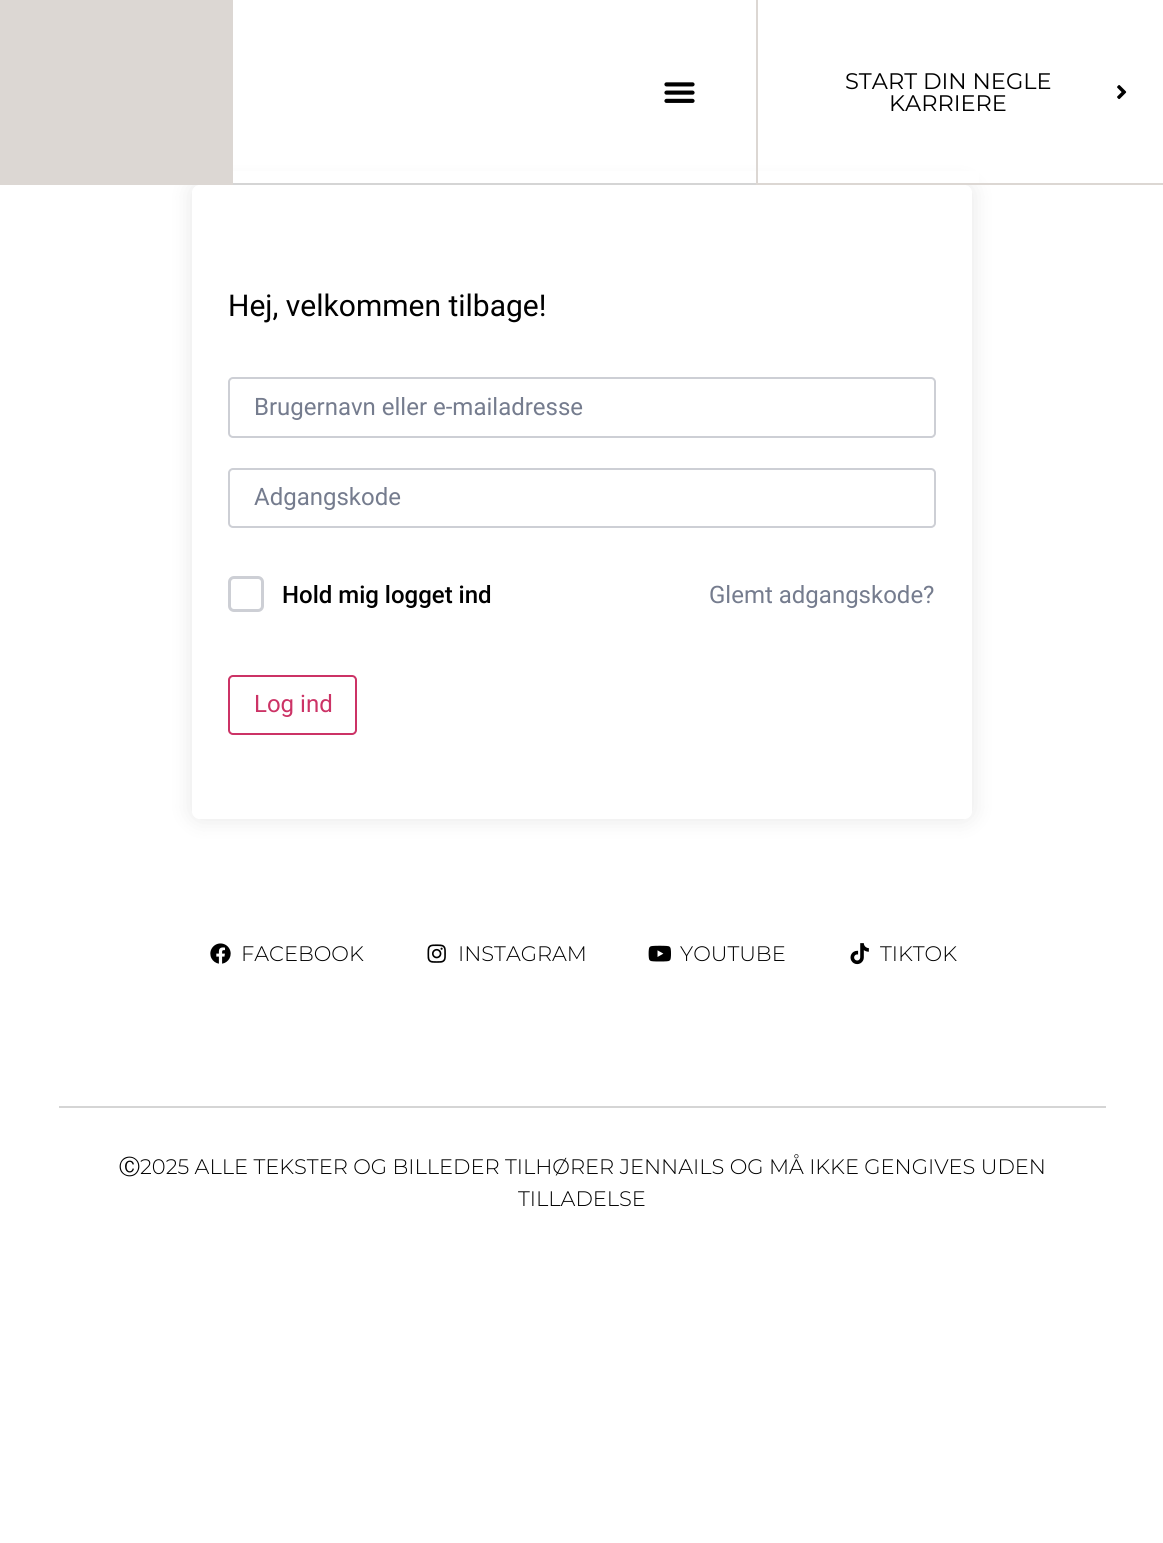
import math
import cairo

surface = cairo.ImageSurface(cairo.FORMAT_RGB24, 1163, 1543)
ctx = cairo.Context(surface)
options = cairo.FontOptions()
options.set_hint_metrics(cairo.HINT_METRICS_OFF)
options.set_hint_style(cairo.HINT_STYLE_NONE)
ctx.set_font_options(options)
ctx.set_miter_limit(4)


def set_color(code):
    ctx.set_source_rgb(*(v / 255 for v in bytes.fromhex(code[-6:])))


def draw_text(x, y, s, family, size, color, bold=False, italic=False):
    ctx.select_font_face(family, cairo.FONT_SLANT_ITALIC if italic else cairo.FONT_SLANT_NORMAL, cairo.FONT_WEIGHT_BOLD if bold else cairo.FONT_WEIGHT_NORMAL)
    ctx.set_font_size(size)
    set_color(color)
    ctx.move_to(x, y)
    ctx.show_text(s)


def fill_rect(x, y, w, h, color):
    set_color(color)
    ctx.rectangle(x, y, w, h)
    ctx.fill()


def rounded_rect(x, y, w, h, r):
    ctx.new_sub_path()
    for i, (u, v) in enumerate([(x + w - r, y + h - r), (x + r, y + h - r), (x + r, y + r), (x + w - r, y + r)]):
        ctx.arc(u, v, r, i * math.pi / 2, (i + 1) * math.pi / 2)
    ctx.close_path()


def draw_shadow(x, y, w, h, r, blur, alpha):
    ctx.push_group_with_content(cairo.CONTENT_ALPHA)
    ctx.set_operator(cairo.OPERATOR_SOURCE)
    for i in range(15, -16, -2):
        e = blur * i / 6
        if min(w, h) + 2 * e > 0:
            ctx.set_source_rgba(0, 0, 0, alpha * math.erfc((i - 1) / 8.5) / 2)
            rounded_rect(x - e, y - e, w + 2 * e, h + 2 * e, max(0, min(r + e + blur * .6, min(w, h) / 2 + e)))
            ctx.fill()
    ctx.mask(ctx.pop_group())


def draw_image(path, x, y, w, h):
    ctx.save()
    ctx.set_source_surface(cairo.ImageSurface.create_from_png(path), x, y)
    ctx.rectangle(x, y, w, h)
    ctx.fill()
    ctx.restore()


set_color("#ffffff")
ctx.paint()
ctx.save()
ctx.set_fill_rule(cairo.FILL_RULE_EVEN_ODD)
ctx.new_path()
ctx.move_to(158, 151)
ctx.line_to(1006, 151)
ctx.line_to(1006, 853)
ctx.line_to(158, 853)
ctx.close_path()
ctx.move_to(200, 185)
ctx.line_to(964, 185)
ctx.curve_to(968.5, 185, 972, 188.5, 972, 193)
ctx.line_to(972, 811)
ctx.curve_to(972, 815.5, 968.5, 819, 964, 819)
ctx.line_to(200, 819)
ctx.curve_to(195.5, 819, 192, 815.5, 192, 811)
ctx.line_to(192, 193)
ctx.curve_to(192, 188.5, 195.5, 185, 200, 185)
ctx.close_path()
ctx.clip()
set_color("#000000")
draw_shadow(192, 185, 780, 634, 8, 11, 0.1)
ctx.restore()
fill_rect(233, 171, 746, 12, "#ffffff")
fill_rect(0, 0, 233, 185, "#dcd7d3")
fill_rect(233, 183, 523, 2, "#d5d5d5")
draw_image("assets/img1.png", 664, 82, 31, 21)
fill_rect(756, 183, 407, 2, "#dcd7d3")
fill_rect(756, 0, 2, 185, "#dcd7d3")
draw_text(845, 89, "START DIN NEGLE", "Montserrat", 22.5, "#000000")
draw_text(889, 111, "KARRIERE", "Montserrat", 22.5, "#000000")
draw_image("assets/img2.png", 1117, 85, 10, 15)
draw_text(228, 316, "Hej, velkommen tilbage!", "Roboto", 30, "#000000")
rounded_rect(229, 378, 706, 59, 4)
set_color("#cdcfd5")
ctx.stroke()
draw_text(254, 415, "Brugernavn eller e-mailadresse", "Roboto", 24, "#757c8e")
rounded_rect(229, 469, 706, 58, 4)
set_color("#cdcfd5")
ctx.stroke()
draw_text(254, 505, "Adgangskode", "Roboto", 24, "#757c8e")
rounded_rect(229.5, 577.5, 33, 33, 4.5)
set_color("#cdcfd5")
ctx.set_line_width(3)
ctx.stroke()
draw_text(282, 603, "Hold mig logget ind", "Roboto Medium", 24, "#000000")
draw_text(709, 603, "Glemt adgangskode?", "Roboto", 24, "#757c8e")
rounded_rect(229, 676, 127, 58, 4)
set_color("#cc3366")
ctx.set_line_width(2)
ctx.stroke()
draw_text(254, 712, "Log ind", "Roboto", 24, "#cc3366")
draw_image("assets/img3.png", 210, 943, 21, 21)
draw_text(241, 961, "FACEBOOK", "Montserrat Light", 21, "#000000")
draw_image("assets/img4.png", 427, 944, 19, 19)
draw_text(458, 961, "INSTAGRAM", "Montserrat Light", 21, "#000000")
draw_image("assets/img5.png", 648, 945, 23, 17)
draw_text(680, 961, "YOUTUBE", "Montserrat Light", 21, "#000000")
draw_image("assets/img6.png", 850, 943, 19, 22)
draw_text(880, 961, "TIKTOK", "Montserrat Light", 21, "#000000")
fill_rect(59, 1106, 1047, 2, "#d5d5d5")
draw_text(119, 1174, "Ⓒ", "WenQuanYi Zen Hei Medium", 21, "#000000")
draw_text(140, 1174, "2025 ALLE TEKSTER OG BILLEDER TILHØRER JENNAILS OG MÅ IKKE GENGIVES UDEN", "Montserrat Light", 21, "#000000")
draw_text(518, 1206, "TILLADELSE", "Montserrat Light", 21, "#000000")
surface.write_to_png("output.png")
